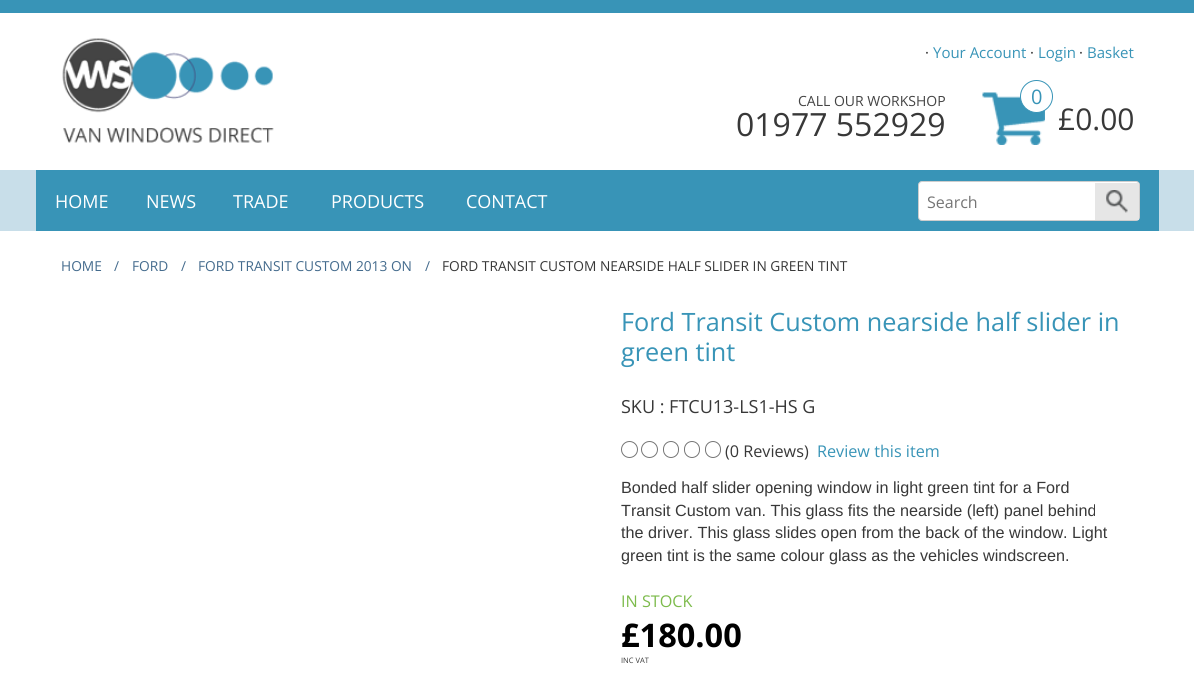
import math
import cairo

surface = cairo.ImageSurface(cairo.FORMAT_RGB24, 1194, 679)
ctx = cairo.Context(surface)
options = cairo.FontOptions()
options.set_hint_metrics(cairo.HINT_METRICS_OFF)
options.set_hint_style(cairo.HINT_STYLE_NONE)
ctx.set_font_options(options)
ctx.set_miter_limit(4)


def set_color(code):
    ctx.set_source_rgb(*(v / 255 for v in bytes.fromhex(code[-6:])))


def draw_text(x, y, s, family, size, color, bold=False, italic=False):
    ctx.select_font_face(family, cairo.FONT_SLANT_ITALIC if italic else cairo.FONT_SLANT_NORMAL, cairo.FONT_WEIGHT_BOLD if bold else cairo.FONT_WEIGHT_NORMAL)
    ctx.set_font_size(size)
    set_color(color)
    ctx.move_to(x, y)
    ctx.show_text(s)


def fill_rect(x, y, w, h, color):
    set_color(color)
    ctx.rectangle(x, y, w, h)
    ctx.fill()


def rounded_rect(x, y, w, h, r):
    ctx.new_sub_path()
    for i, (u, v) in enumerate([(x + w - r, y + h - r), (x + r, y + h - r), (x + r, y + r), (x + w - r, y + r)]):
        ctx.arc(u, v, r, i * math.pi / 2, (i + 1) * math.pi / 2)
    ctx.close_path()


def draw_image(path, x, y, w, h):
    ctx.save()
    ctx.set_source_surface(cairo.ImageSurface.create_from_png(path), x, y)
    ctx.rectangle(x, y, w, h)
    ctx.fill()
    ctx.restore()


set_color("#ffffff")
ctx.paint()
fill_rect(0, 0, 1194, 13, "#3894b7")
draw_image("assets/img1.png", 62, 38, 212, 105)
draw_text(925, 58, "·", "Open Sans", 15, "#383838")
draw_text(933, 58, "Your Account", "Open Sans", 15, "#3894b7")
draw_text(1030, 58, "·", "Open Sans", 15, "#383838")
draw_text(1038, 58, "Login", "Open Sans", 15, "#3894b7")
draw_text(1079, 58, "·", "Open Sans", 15, "#383838")
draw_text(1087, 58, "Basket", "Open Sans", 15, "#3894b7")
draw_text(798, 106, "CALL OUR WORKSHOP", "Open Sans", 14, "#444444")
draw_text(736, 136, "01977 552929", "Open Sans", 32, "#383838")
draw_image("assets/img2.png", 982, 92, 63, 53)
set_color("#ffffff")
ctx.arc(1036.5, 96.5, 16, 0, 2 * math.pi)
ctx.fill_preserve()
set_color("#3894b7")
ctx.set_line_width(1)
ctx.stroke()
draw_text(1031, 104, "0", "Open Sans", 20, "#3894b7")
draw_text(1058, 130, "£0.00", "Open Sans", 30, "#383838")
fill_rect(0, 170, 1194, 61, "#c8dee9")
fill_rect(36, 170, 1123, 61, "#3894b7")
draw_text(55, 208, "HOME", "Open Sans", 18, "#ffffff")
draw_text(146, 208, "NEWS", "Open Sans", 18, "#ffffff")
draw_text(233, 208, "TRADE", "Open Sans", 18, "#ffffff")
draw_text(331, 208, "PRODUCTS", "Open Sans", 18, "#ffffff")
draw_text(466, 208, "CONTACT", "Open Sans", 18, "#ffffff")
rounded_rect(918.5, 181.5, 221, 39, 3.5)
ctx.fill_preserve()
set_color("#cdcdcd")
ctx.stroke()
draw_text(927, 208, "Search", "Open Sans", 16, "#757575")
fill_rect(1095, 183, 44, 37, "#e6e6e6")
draw_image("assets/img3.png", 1106, 190, 22, 23)
draw_text(61, 271, "HOME", "Open Sans", 13.75, "#446b8d")
draw_text(114, 271, "/", "Open Sans", 13.75, "#446b8d")
draw_text(132, 271, "FORD", "Open Sans", 13.75, "#446b8d")
draw_text(181, 271, "/", "Open Sans", 13.75, "#446b8d")
draw_text(198, 271, "FORD TRANSIT CUSTOM 2013 ON", "Open Sans", 13.75, "#446b8d")
draw_text(425, 271, "/", "Open Sans", 13.75, "#446b8d")
draw_text(442, 271, "FORD TRANSIT CUSTOM NEARSIDE HALF SLIDER IN GREEN TINT", "Open Sans", 13.75, "#383838")
draw_text(621, 331, "Ford Transit Custom nearside half slider in", "Open Sans", 25.25, "#3894b7")
draw_text(621, 361, "green tint", "Open Sans", 25.25, "#3894b7")
draw_text(621, 413, "SKU : FTCU13-LS1-HS G", "Open Sans", 18, "#383838")
ctx.new_path()
ctx.arc(629.5, 449.5, 8, 0, 2 * math.pi)
set_color("#767676")
ctx.stroke()
ctx.arc(649.5, 449.5, 8, 0, 2 * math.pi)
ctx.stroke()
rounded_rect(663.5, 441.5, 15, 16, 7.5)
ctx.stroke()
rounded_rect(684.5, 441.5, 15, 16, 7.5)
ctx.stroke()
rounded_rect(705.5, 441.5, 15, 16, 7.5)
ctx.stroke()
draw_text(725, 457, "(0 Reviews)", "Open Sans", 16.2, "#383838")
draw_text(817, 457, "Review this item", "Open Sans", 16.2, "#3894b7")
draw_text(621, 493, "Bonded half slider opening window in light green tint for a Ford", "Liberation Sans", 16.2, "#383838")
draw_text(621, 516, "Transit Custom van. This glass fits the nearside (left) panel behind", "Liberation Sans", 16.2, "#383838")
draw_text(621, 538, "the driver. This glass slides open from the back of the window. Light", "Liberation Sans", 16.2, "#383838")
draw_text(621, 561, "green tint is the same colour glass as the vehicles windscreen.", "Liberation Sans", 16.2, "#383838")
draw_text(621, 607, "IN STOCK", "Open Sans", 16.2, "#7dbb4c")
draw_text(621, 647, "£180.00", "Open Sans", 32.5, "#000000", bold=True)
draw_text(621, 663, "INC VAT", "Open Sans", 7.5, "#383838")
surface.write_to_png("output.png")
